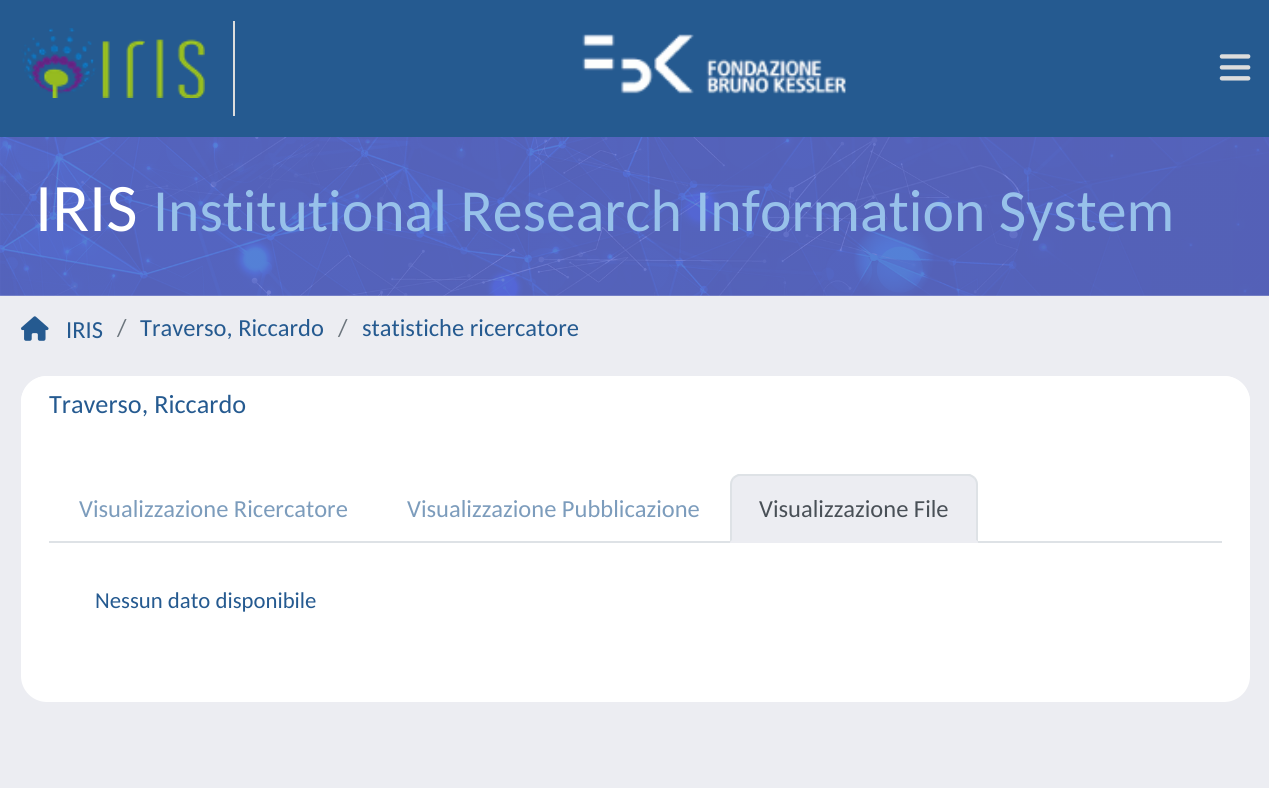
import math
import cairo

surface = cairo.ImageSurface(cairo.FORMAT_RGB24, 1269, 788)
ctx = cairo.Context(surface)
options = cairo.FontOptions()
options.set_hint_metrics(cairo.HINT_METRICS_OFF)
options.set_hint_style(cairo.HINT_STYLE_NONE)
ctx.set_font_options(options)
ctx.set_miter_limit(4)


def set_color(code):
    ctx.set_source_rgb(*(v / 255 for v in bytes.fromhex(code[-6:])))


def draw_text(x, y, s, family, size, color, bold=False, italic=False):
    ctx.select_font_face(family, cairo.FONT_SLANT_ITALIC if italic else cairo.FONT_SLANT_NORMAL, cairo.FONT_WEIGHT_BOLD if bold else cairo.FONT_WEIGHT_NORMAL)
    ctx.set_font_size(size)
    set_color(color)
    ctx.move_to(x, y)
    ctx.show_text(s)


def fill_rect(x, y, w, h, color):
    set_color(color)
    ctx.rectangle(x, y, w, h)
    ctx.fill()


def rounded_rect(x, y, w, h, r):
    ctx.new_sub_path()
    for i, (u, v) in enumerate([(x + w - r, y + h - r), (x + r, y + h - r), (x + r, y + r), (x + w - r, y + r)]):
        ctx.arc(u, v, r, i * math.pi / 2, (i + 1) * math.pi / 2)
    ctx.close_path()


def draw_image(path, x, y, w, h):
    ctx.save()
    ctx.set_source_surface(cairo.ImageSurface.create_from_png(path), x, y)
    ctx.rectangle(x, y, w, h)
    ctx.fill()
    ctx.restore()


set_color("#ecedf2")
ctx.paint()
fill_rect(0, 0, 1269, 137, "#255a90")
fill_rect(233, 21, 2, 95, "#dddddd")
draw_image("assets/img1.png", 21, 28, 184, 70)
draw_image("assets/img2.png", 582, 34, 264, 60)
draw_image("assets/img3.png", 1219, 54, 32, 27)
draw_image("assets/img4.png", 0, 137, 1269, 159)
draw_text(35, 231, "IRIS", "Carlito", 68, "#ffffff")
draw_text(153, 231, "Institutional Research Information System", "Carlito", 59.75, "#97c1ea")
draw_image("assets/img5.png", 21, 316, 28, 25)
draw_text(66, 338, "IRIS", "Carlito", 24.5, "#255a90")
draw_text(117, 336, "/", "Carlito", 24.5, "#6c757d")
draw_text(140, 336, "Traverso, Riccardo", "Carlito", 24.5, "#255a90")
draw_text(338, 336, "/", "Carlito", 24.5, "#6c757d")
draw_text(362, 336, "statistiche ricercatore", "Carlito", 24.5, "#255a90")
set_color("#ffffff")
rounded_rect(21, 376, 1229, 326, 26)
ctx.fill()
ctx.new_path()
ctx.move_to(47, 376)
ctx.line_to(1224, 376)
ctx.curve_to(1238.5, 376, 1250, 387.5, 1250, 402)
ctx.line_to(1250, 446)
ctx.line_to(21, 446)
ctx.line_to(21, 402)
ctx.curve_to(21, 387.5, 32.5, 376, 47, 376)
ctx.close_path()
ctx.fill()
draw_text(49, 413, "Traverso, Riccardo", "Carlito", 26.25, "#255a90")
fill_rect(49, 541, 1173, 2, "#dee2e6")
draw_text(79, 517, "Visualizzazione Ricercatore", "Carlito", 24.5, "#7c9cbc")
draw_text(407, 517, "Visualizzazione Pubblicazione", "Carlito", 24.5, "#7c9cbc")
set_color("#ecedf2")
ctx.new_path()
ctx.move_to(741, 474)
ctx.line_to(967, 474)
ctx.curve_to(973, 474, 978, 479, 978, 485)
ctx.line_to(978, 543)
ctx.line_to(730, 543)
ctx.line_to(730, 485)
ctx.curve_to(730, 479, 735, 474, 741, 474)
ctx.close_path()
ctx.fill()
set_color("#dee2e6")
ctx.new_path()
ctx.move_to(740, 476)
ctx.curve_to(738, 476, 736, 477, 734, 479)
ctx.line_to(733, 477)
ctx.curve_to(734, 476, 736, 475, 738, 474)
ctx.line_to(970, 474)
ctx.curve_to(972, 475, 974, 476, 975, 477)
ctx.line_to(974, 479)
ctx.curve_to(972, 477, 970, 476, 968, 476)
ctx.close_path()
ctx.fill()
ctx.new_path()
ctx.move_to(975, 477)
ctx.curve_to(977, 479, 978, 482, 978, 485)
ctx.line_to(978, 542)
ctx.line_to(976, 540)
ctx.line_to(976, 485)
ctx.curve_to(976, 482, 975, 480, 974, 479)
ctx.close_path()
ctx.fill()
set_color("#ecedf2")
ctx.new_path()
ctx.move_to(978, 542)
ctx.line_to(730, 542)
ctx.line_to(732, 540)
ctx.line_to(732, 541)
ctx.line_to(976, 541)
ctx.line_to(976, 540)
ctx.close_path()
ctx.fill()
set_color("#dee2e6")
ctx.new_path()
ctx.move_to(730, 542)
ctx.line_to(730, 485)
ctx.curve_to(730, 482, 731, 479, 733, 477)
ctx.line_to(734, 479)
ctx.curve_to(733, 480, 732, 482, 732, 485)
ctx.line_to(732, 540)
ctx.close_path()
ctx.fill()
draw_text(759, 517, "Visualizzazione File", "Carlito", 24.5, "#495057")
draw_text(95, 608, "Nessun dato disponibile", "Carlito", 22.75, "#255a90")
surface.write_to_png("output.png")
